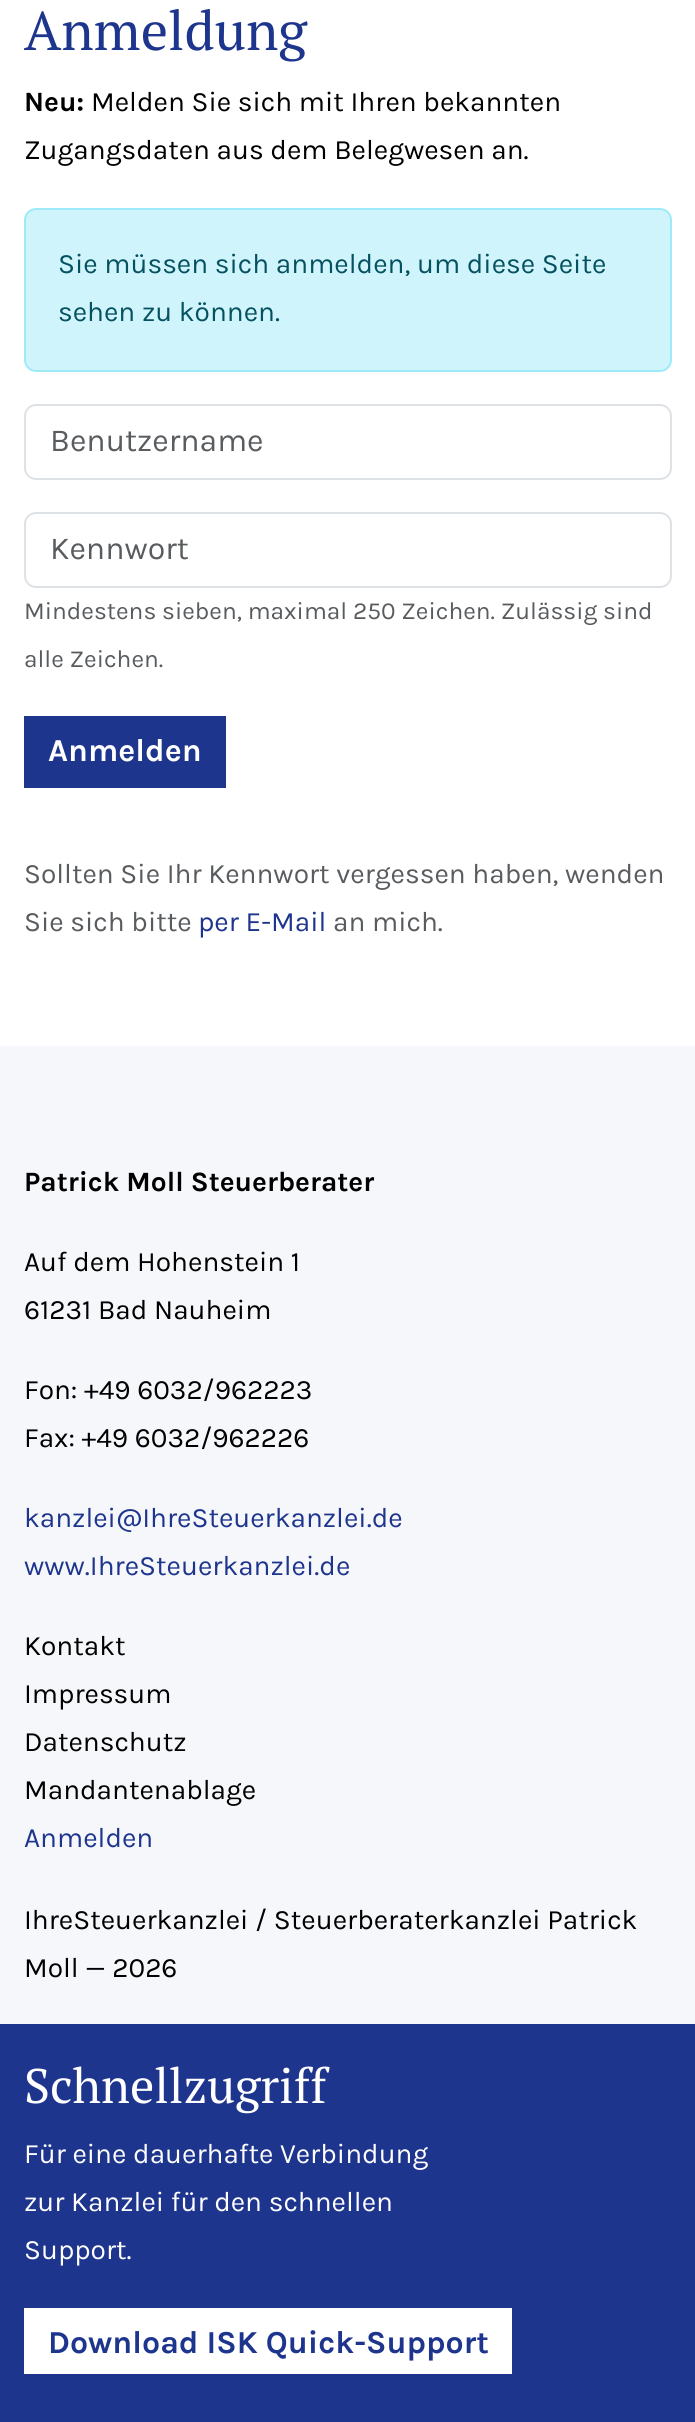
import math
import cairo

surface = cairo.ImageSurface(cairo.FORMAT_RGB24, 695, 2422)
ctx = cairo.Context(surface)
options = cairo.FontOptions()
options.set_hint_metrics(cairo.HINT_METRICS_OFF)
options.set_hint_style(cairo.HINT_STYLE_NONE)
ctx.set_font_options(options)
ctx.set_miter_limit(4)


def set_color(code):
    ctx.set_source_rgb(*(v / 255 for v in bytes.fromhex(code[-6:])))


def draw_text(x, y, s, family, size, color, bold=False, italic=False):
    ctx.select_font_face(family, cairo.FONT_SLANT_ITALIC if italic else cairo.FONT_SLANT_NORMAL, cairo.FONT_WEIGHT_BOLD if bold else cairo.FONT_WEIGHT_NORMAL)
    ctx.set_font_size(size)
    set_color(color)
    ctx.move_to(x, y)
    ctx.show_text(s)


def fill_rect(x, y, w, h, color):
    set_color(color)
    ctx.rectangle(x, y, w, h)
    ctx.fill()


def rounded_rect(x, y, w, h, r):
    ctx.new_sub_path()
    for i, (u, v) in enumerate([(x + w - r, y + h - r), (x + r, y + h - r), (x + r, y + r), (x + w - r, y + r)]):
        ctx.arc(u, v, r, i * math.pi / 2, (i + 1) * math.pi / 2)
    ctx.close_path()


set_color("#ffffff")
ctx.paint()
draw_text(24, 50, "Anmeldung", "PT Serif", 54.5, "#1e358e")
draw_text(24, 111, "Neu:", "Karla", 28, "#000000", bold=True)
draw_text(91, 111, "Melden Sie sich mit Ihren bekannten", "Karla", 28, "#000000")
draw_text(24, 159, "Zugangsdaten aus dem Belegwesen an.", "Karla", 28, "#000000")
set_color("#cff4fc")
rounded_rect(25, 209, 646, 162, 11)
ctx.fill_preserve()
set_color("#9eeaf9")
ctx.stroke()
draw_text(58, 273, "Sie müssen sich anmelden, um diese Seite", "Karla", 28, "#055160")
draw_text(58, 321, "sehen zu können.", "Karla", 28, "#055160")
rounded_rect(25, 405, 646, 74, 11)
set_color("#dee2e6")
ctx.stroke()
draw_text(50, 451, "Benutzername", "Karla", 32, "#595c5f")
rounded_rect(25, 513, 646, 74, 11)
set_color("#dee2e6")
ctx.stroke()
draw_text(50, 559, "Kennwort", "Karla", 32, "#595c5f")
draw_text(24, 619, "Mindestens sieben, maximal 250 Zeichen. Zulässig sind", "Karla", 24.5, "#595c5f")
draw_text(24, 667, "alle Zeichen.", "Karla", 24.5, "#595c5f")
fill_rect(24, 716, 202, 72, "#1e358e")
draw_text(48, 761, "Anmelden", "Karla", 32, "#ffffff", bold=True)
draw_text(24, 883, "Sollten Sie Ihr Kennwort vergessen haben, wenden", "Karla", 28, "#595c5f")
draw_text(24, 931, "Sie sich bitte", "Karla", 28, "#595c5f")
draw_text(198, 931, "per E-Mail", "Karla", 28, "#1e358e")
draw_text(333, 931, "an mich.", "Karla", 28, "#595c5f")
fill_rect(0, 1046, 695, 978, "#f6f7fa")
draw_text(24, 1191, "Patrick Moll Steuerberater", "Karla", 28, "#000000", bold=True)
draw_text(24, 1271, "Auf dem Hohenstein 1", "Karla", 28, "#000000")
draw_text(24, 1319, "61231 Bad Nauheim", "Karla", 28, "#000000")
draw_text(24, 1399, "Fon: +49 6032/962223", "Karla", 28, "#000000")
draw_text(24, 1447, "Fax: +49 6032/962226", "Karla", 28, "#000000")
draw_text(24, 1527, "kanzlei@IhreSteuerkanzlei.de", "Karla", 28, "#1e358e")
draw_text(24, 1575, "www.IhreSteuerkanzlei.de", "Karla", 28, "#1e358e")
draw_text(24, 1655, "Kontakt", "Karla", 28, "#000000")
draw_text(24, 1703, "Impressum", "Karla", 28, "#000000")
draw_text(24, 1751, "Datenschutz", "Karla", 28, "#000000")
draw_text(24, 1799, "Mandantenablage", "Karla", 28, "#000000")
draw_text(24, 1847, "Anmelden", "Karla", 28, "#1e358e")
draw_text(24, 1929, "IhreSteuerkanzlei / Steuerberaterkanzlei Patrick", "Karla", 28, "#000000")
draw_text(24, 1977, "Moll — 2026", "Karla", 28, "#000000")
fill_rect(0, 2024, 695, 398, "#1e358e")
draw_text(24, 2103, "Schnellzugriff", "PT Serif", 48.5, "#ffffff")
draw_text(24, 2163, "Für eine dauerhafte Verbindung", "Karla", 28, "#ffffff")
draw_text(24, 2211, "zur Kanzlei für den schnellen", "Karla", 28, "#ffffff")
draw_text(24, 2259, "Support.", "Karla", 28, "#ffffff")
fill_rect(24, 2308, 488, 66, "#ffffff")
draw_text(48, 2353, "Download ISK Quick-Support", "Karla", 32, "#1e358e", bold=True)
surface.write_to_png("output.png")
